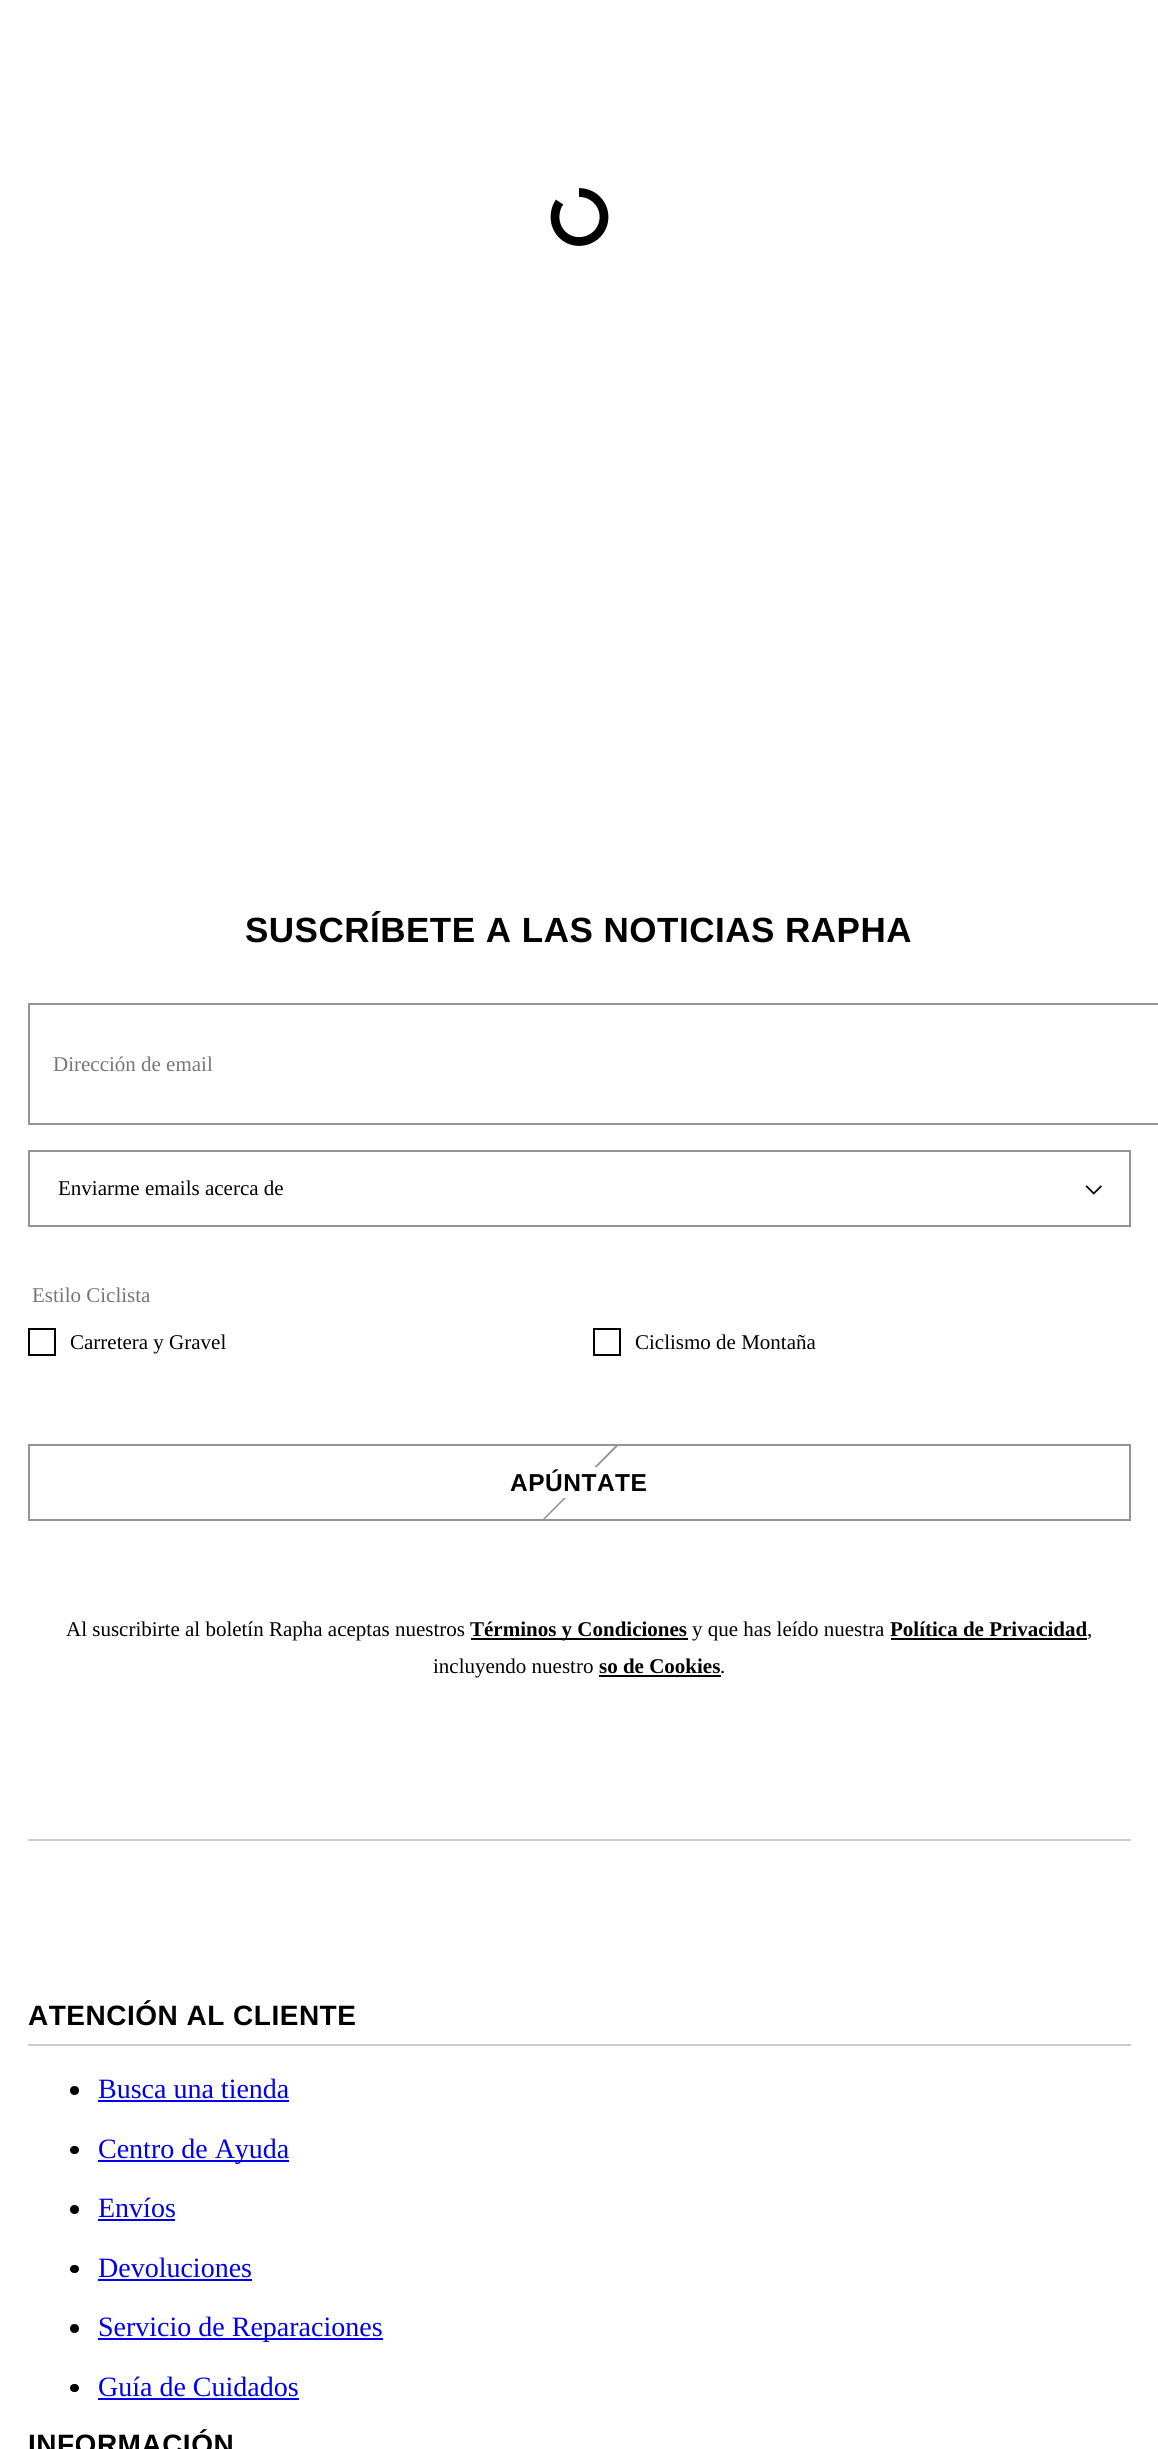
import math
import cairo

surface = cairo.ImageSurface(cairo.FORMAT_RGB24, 1158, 2449)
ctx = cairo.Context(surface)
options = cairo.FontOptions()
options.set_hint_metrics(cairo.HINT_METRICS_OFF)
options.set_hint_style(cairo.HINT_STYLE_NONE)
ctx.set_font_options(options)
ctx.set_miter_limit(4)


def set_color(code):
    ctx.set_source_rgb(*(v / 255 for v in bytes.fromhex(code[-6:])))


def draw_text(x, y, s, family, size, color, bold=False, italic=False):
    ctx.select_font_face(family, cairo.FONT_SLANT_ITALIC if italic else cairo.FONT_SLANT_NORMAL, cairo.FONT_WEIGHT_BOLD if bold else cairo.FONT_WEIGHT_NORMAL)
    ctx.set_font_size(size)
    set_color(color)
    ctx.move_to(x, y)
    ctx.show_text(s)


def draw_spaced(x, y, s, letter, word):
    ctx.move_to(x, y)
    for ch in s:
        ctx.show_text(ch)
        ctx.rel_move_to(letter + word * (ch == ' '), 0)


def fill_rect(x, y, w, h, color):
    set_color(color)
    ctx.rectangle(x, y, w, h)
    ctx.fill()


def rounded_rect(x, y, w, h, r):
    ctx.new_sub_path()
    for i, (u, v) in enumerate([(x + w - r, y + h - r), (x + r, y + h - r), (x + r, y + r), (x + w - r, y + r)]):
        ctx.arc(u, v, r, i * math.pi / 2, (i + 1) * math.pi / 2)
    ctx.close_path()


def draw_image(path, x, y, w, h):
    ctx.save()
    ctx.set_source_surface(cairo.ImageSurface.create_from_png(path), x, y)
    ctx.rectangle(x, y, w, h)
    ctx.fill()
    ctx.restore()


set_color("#ffffff")
ctx.paint()
ctx.new_path()
ctx.move_to(579, 192.5)
ctx.curve_to(593, 192.5, 604, 203.5, 604, 217)
ctx.curve_to(604, 230.5, 593, 241.5, 579, 241.5)
ctx.curve_to(565.5, 241.5, 555, 230.5, 555, 217)
ctx.curve_to(555, 211.5, 556.5, 206.5, 559.5, 202)
set_color("#000000")
ctx.set_line_width(8.8)
ctx.stroke()
fill_rect(28, 1839, 1103, 2, "#cccccc")
ctx.select_font_face("Liberation Sans", cairo.FONT_SLANT_NORMAL, cairo.FONT_WEIGHT_BOLD)
ctx.set_font_size(35)
set_color("#000000")
draw_spaced(245, 942, "SUSCRÍBETE A LAS NOTICIAS RAPHA", 0.5, 0)
ctx.rectangle(29, 1004, 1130, 120)
set_color("#949494")
ctx.set_line_width(2)
ctx.stroke()
draw_text(53, 1071, "Dirección de email", "Liberation Serif", 21, "#767676")
ctx.rectangle(29, 1151, 1101, 75)
set_color("#949494")
ctx.stroke()
draw_text(58, 1195, "Enviarme emails acerca de", "Liberation Serif", 21, "#000000")
draw_image("assets/img1.png", 1085, 1185, 17, 10)
draw_text(32, 1302, "Estilo Ciclista", "Liberation Serif", 21, "#767676")
ctx.rectangle(29, 1329, 26, 26)
set_color("#000000")
ctx.stroke()
draw_text(70, 1349, "Carretera y Gravel", "Liberation Serif", 21, "#000000")
ctx.rectangle(594, 1329, 26, 26)
ctx.stroke()
draw_text(635, 1349, "Ciclismo de Montaña", "Liberation Serif", 21, "#000000")
ctx.rectangle(29, 1445, 1101, 75)
set_color("#949494")
ctx.stroke()
ctx.select_font_face("Liberation Sans", cairo.FONT_SLANT_NORMAL, cairo.FONT_WEIGHT_BOLD)
ctx.set_font_size(24.5)
set_color("#000000")
draw_spaced(510, 1491, "APÚNTATE", 0.5, 0)
ctx.save()
ctx.rectangle(30, 1446, 1099, 73)
ctx.clip()
gradient = cairo.LinearGradient(580, 1535, 580, 1430)
gradient.add_color_stop_rgba(0.35, 0.58, 0.58, 0.58, 1)
gradient.add_color_stop_rgba(0.35, 0.58, 0.58, 0.58, 0)
gradient.add_color_stop_rgba(0.65, 0.58, 0.58, 0.58, 0)
gradient.add_color_stop_rgba(0.65, 0.58, 0.58, 0.58, 1)
ctx.set_source(gradient)
ctx.new_path()
ctx.move_to(631, 1430)
ctx.line_to(633, 1431)
ctx.line_to(529, 1535)
ctx.line_to(528, 1534)
ctx.close_path()
ctx.fill()
ctx.restore()
draw_text(66, 1636, "Al suscribirte al boletín Rapha aceptas nuestros", "Liberation Serif", 21, "#000000")
fill_rect(471, 1638, 217, 2, "#000000")
draw_text(470, 1636, "Términos y Condiciones", "Liberation Serif", 21, "#000000", bold=True)
draw_text(692, 1636, "y que has leído nuestra", "Liberation Serif", 21, "#000000")
draw_text(890, 1636, "Política de Privacidad", "Liberation Serif", 21, "#000000", bold=True)
fill_rect(891, 1638, 196, 2, "#000000")
draw_text(1087, 1636, ",", "Liberation Serif", 21, "#000000")
draw_text(433, 1673, "incluyendo nuestro", "Liberation Serif", 21, "#000000")
draw_text(599, 1673, "so de Cookies", "Liberation Serif", 21, "#000000", bold=True)
fill_rect(599, 1675, 122, 2, "#000000")
draw_text(720, 1673, ".", "Liberation Serif", 21, "#000000")
fill_rect(28, 2044, 1103, 2, "#cccccc")
ctx.select_font_face("Liberation Sans", cairo.FONT_SLANT_NORMAL, cairo.FONT_WEIGHT_BOLD)
ctx.set_font_size(28)
set_color("#000000")
draw_spaced(28, 2025, "ATENCIÓN AL CLIENTE", 0.5, 0)
ctx.new_path()
ctx.arc(74.5, 2090.5, 4.5, 0, 2 * math.pi)
ctx.fill()
draw_text(98, 2098, "Busca una tienda", "Liberation Serif", 28, "#0000ee")
fill_rect(98, 2100, 191, 2, "#0000ee")
set_color("#000000")
rounded_rect(70, 2146, 9, 8, 4)
ctx.fill()
fill_rect(98, 2160, 191, 2, "#0000ee")
draw_text(98, 2158, "Centro de Ayuda", "Liberation Serif", 28, "#0000ee")
set_color("#000000")
ctx.new_path()
ctx.arc(74.5, 2209.5, 4.5, 0, 2 * math.pi)
ctx.fill()
draw_text(98, 2217, "Envíos", "Liberation Serif", 28, "#0000ee")
fill_rect(98, 2219, 77, 2, "#0000ee")
set_color("#000000")
rounded_rect(70, 2265, 9, 8, 4)
ctx.fill()
draw_text(98, 2277, "Devoluciones", "Liberation Serif", 28, "#0000ee")
fill_rect(98, 2279, 154, 2, "#0000ee")
set_color("#000000")
ctx.new_path()
ctx.arc(74.5, 2328.5, 4.5, 0, 2 * math.pi)
ctx.fill()
fill_rect(98, 2338, 285, 2, "#0000ee")
draw_text(98, 2336, "Servicio de Reparaciones", "Liberation Serif", 28, "#0000ee")
set_color("#000000")
rounded_rect(70, 2384, 9, 8, 4)
ctx.fill()
draw_text(98, 2396, "Guía de Cuidados", "Liberation Serif", 28, "#0000ee")
fill_rect(98, 2398, 201, 2, "#0000ee")
ctx.select_font_face("Liberation Sans", cairo.FONT_SLANT_NORMAL, cairo.FONT_WEIGHT_BOLD)
set_color("#000000")
draw_spaced(28, 2454, "INFORMACIÓN", 0.5, 0)
surface.write_to_png("output.png")
